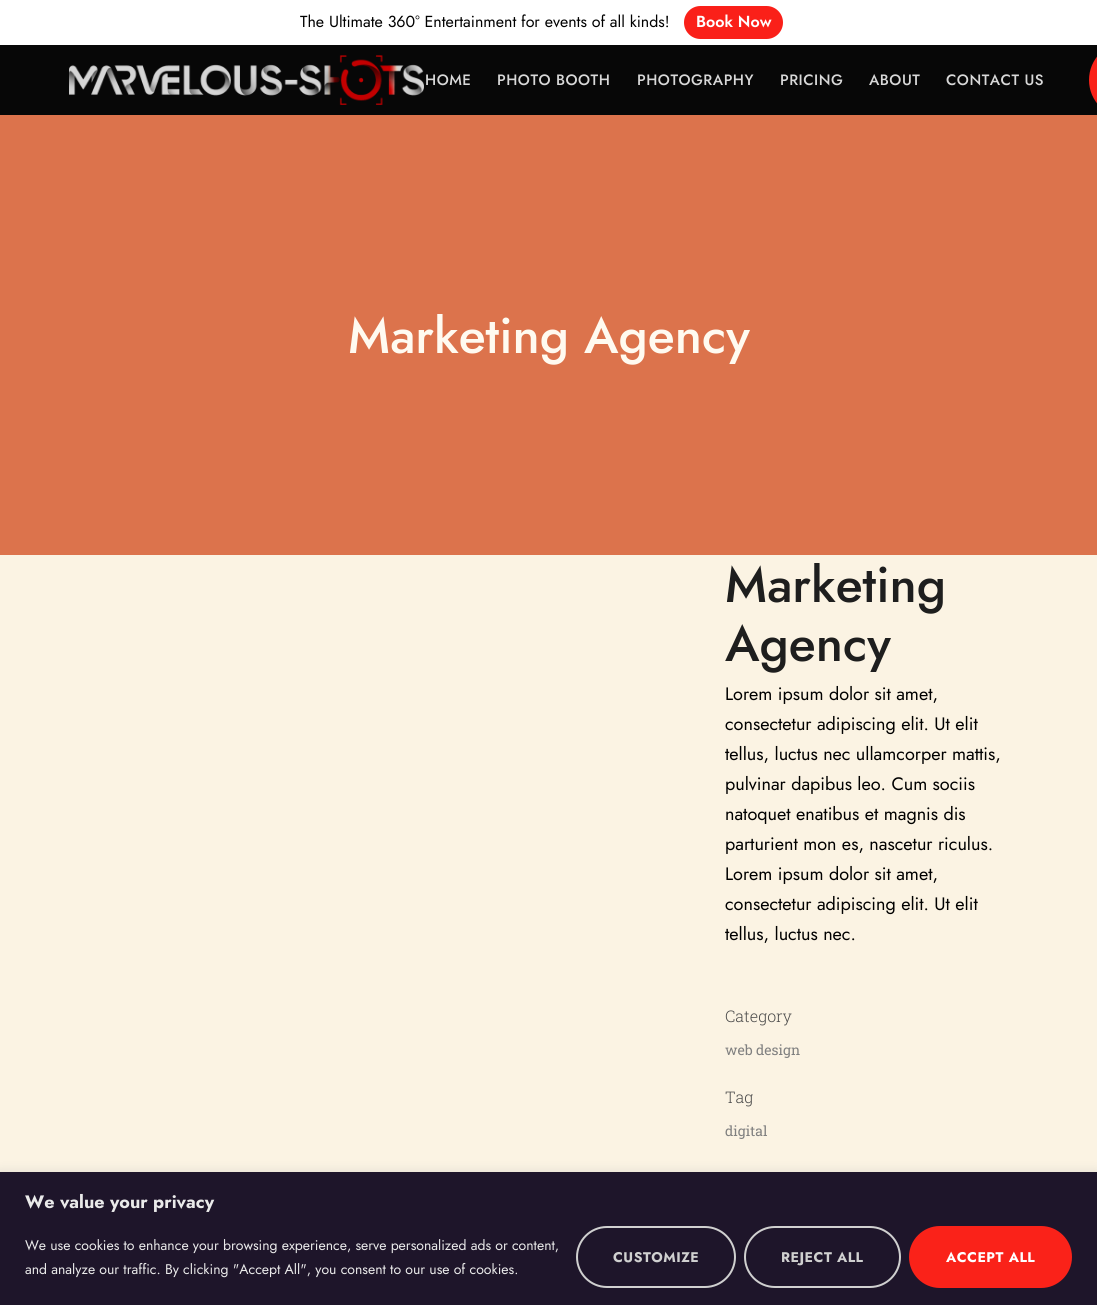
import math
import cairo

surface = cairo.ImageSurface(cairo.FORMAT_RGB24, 1097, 1305)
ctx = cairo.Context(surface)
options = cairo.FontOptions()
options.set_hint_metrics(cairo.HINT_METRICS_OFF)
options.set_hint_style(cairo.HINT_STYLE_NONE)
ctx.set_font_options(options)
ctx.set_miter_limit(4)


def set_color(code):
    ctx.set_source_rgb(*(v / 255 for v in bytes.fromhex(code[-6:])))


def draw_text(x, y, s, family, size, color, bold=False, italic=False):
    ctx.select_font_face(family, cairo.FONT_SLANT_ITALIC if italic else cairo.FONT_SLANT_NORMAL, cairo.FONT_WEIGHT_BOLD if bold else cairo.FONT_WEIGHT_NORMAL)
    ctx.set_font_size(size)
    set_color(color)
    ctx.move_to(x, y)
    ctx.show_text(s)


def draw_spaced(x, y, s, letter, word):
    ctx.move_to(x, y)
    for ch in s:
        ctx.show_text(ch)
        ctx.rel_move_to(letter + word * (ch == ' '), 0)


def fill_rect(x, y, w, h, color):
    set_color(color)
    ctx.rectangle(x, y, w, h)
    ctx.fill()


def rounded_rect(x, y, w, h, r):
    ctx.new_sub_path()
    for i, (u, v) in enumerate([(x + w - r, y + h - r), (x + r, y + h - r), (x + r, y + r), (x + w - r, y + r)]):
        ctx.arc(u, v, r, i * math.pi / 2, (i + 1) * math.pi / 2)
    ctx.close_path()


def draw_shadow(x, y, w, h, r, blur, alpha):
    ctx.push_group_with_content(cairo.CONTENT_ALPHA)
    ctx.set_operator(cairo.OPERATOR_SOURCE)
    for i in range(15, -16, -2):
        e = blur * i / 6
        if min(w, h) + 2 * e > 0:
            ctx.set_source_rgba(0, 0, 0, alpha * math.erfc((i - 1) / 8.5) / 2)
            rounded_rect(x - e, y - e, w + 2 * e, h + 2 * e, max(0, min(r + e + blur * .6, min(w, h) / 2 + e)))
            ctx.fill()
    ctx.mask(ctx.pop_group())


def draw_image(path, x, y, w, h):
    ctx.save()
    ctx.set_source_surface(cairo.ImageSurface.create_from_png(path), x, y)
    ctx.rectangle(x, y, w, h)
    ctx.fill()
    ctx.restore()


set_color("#fbf3e3")
ctx.paint()
fill_rect(0, 45, 1097, 70, "#070707")
fill_rect(0, 115, 1097, 440, "#dc734c")
set_color("#fa2219")
rounded_rect(1089, 42, 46, 76, 38)
ctx.fill()
fill_rect(0, 0, 1097, 45, "#ffffff")
draw_text(300, 27, "The Ultimate 360° Entertainment for events of all kinds!", "Jost", 16, "#000000")
set_color("#fa2019")
rounded_rect(684, 6, 99, 33, 16.5)
ctx.fill()
draw_text(696, 27, "Book Now", "Jost SemiBold", 16, "#ffffff")
draw_image("assets/img1.png", 69, 55, 355, 50)
ctx.select_font_face("Jost Medium")
ctx.set_font_size(15)
set_color("#d8d8d8")
draw_spaced(425, 85, "HOME", 0.5, 0)
draw_spaced(497, 85, "PHOTO BOOTH", 0.5, 0)
draw_spaced(637, 85, "PHOTOGRAPHY", 0.5, 0)
draw_spaced(780, 85, "PRICING", 0.5, 0)
draw_spaced(869, 85, "ABOUT", 0.5, 0)
draw_spaced(946, 85, "CONTACT US", 0.5, 0)
draw_text(348, 353, "Marketing Agency", "Jost Medium", 50, "#fffaf0")
draw_text(725, 602, "Marketing", "Jost Medium", 50, "#1e1e1e")
draw_text(725, 661, "Agency", "Jost Medium", 50, "#1e1e1e")
draw_text(725, 700, "Lorem ipsum dolor sit amet,", "Jost", 18, "#000000")
draw_text(725, 730, "consectetur adipiscing elit. Ut elit", "Jost", 18, "#000000")
draw_text(725, 760, "tellus, luctus nec ullamcorper mattis,", "Jost", 18, "#000000")
draw_text(725, 790, "pulvinar dapibus leo. Cum sociis", "Jost", 18, "#000000")
draw_text(725, 820, "natoquet enatibus et magnis dis", "Jost", 18, "#000000")
draw_text(725, 850, "parturient mon es, nascetur riculus.", "Jost", 18, "#000000")
draw_text(725, 880, "Lorem ipsum dolor sit amet,", "Jost", 18, "#000000")
draw_text(725, 910, "consectetur adipiscing elit. Ut elit", "Jost", 18, "#000000")
draw_text(725, 940, "tellus, luctus nec.", "Jost", 18, "#000000")
draw_text(725, 1022, "Category", "Roboto Slab Light", 16, "#4b4b4b")
draw_text(725, 1055, "web design", "Roboto Slab", 14, "#808080")
draw_text(725, 1103, "Tag", "Roboto Slab Light", 16, "#4b4b4b")
draw_text(725, 1136, "digital", "Roboto Slab", 14, "#808080")
set_color("#acabab")
draw_shadow(0, 1171, 1097, 133, 0, 5, 0.3)
fill_rect(0, 1172, 1097, 133, "#1e152a")
draw_text(25, 1208, "We value your privacy", "Jost", 18, "#eaeaea", bold=True)
draw_text(25, 1250, "We use cookies to enhance your browsing experience, serve personalized ads or content,", "Jost", 14, "#eaeaea")
draw_text(25, 1274, "and analyze our traffic. By clicking \"Accept All\", you consent to our use of cookies.", "Jost", 14, "#eaeaea")
rounded_rect(577, 1227, 158, 60, 30)
set_color("#d0d0d0")
ctx.stroke()
ctx.select_font_face("Jost", cairo.FONT_SLANT_NORMAL, cairo.FONT_WEIGHT_BOLD)
draw_spaced(613, 1262, "CUSTOMIZE", 0.5, 0)
rounded_rect(745, 1227, 155, 60, 30)
ctx.stroke()
draw_spaced(781, 1262, "REJECT ALL", 0.5, 0)
set_color("#fa2219")
rounded_rect(910, 1227, 161, 60, 30)
ctx.fill_preserve()
ctx.stroke()
set_color("#ffffff")
draw_spaced(946, 1262, "ACCEPT ALL", 0.5, 0)
surface.write_to_png("output.png")
